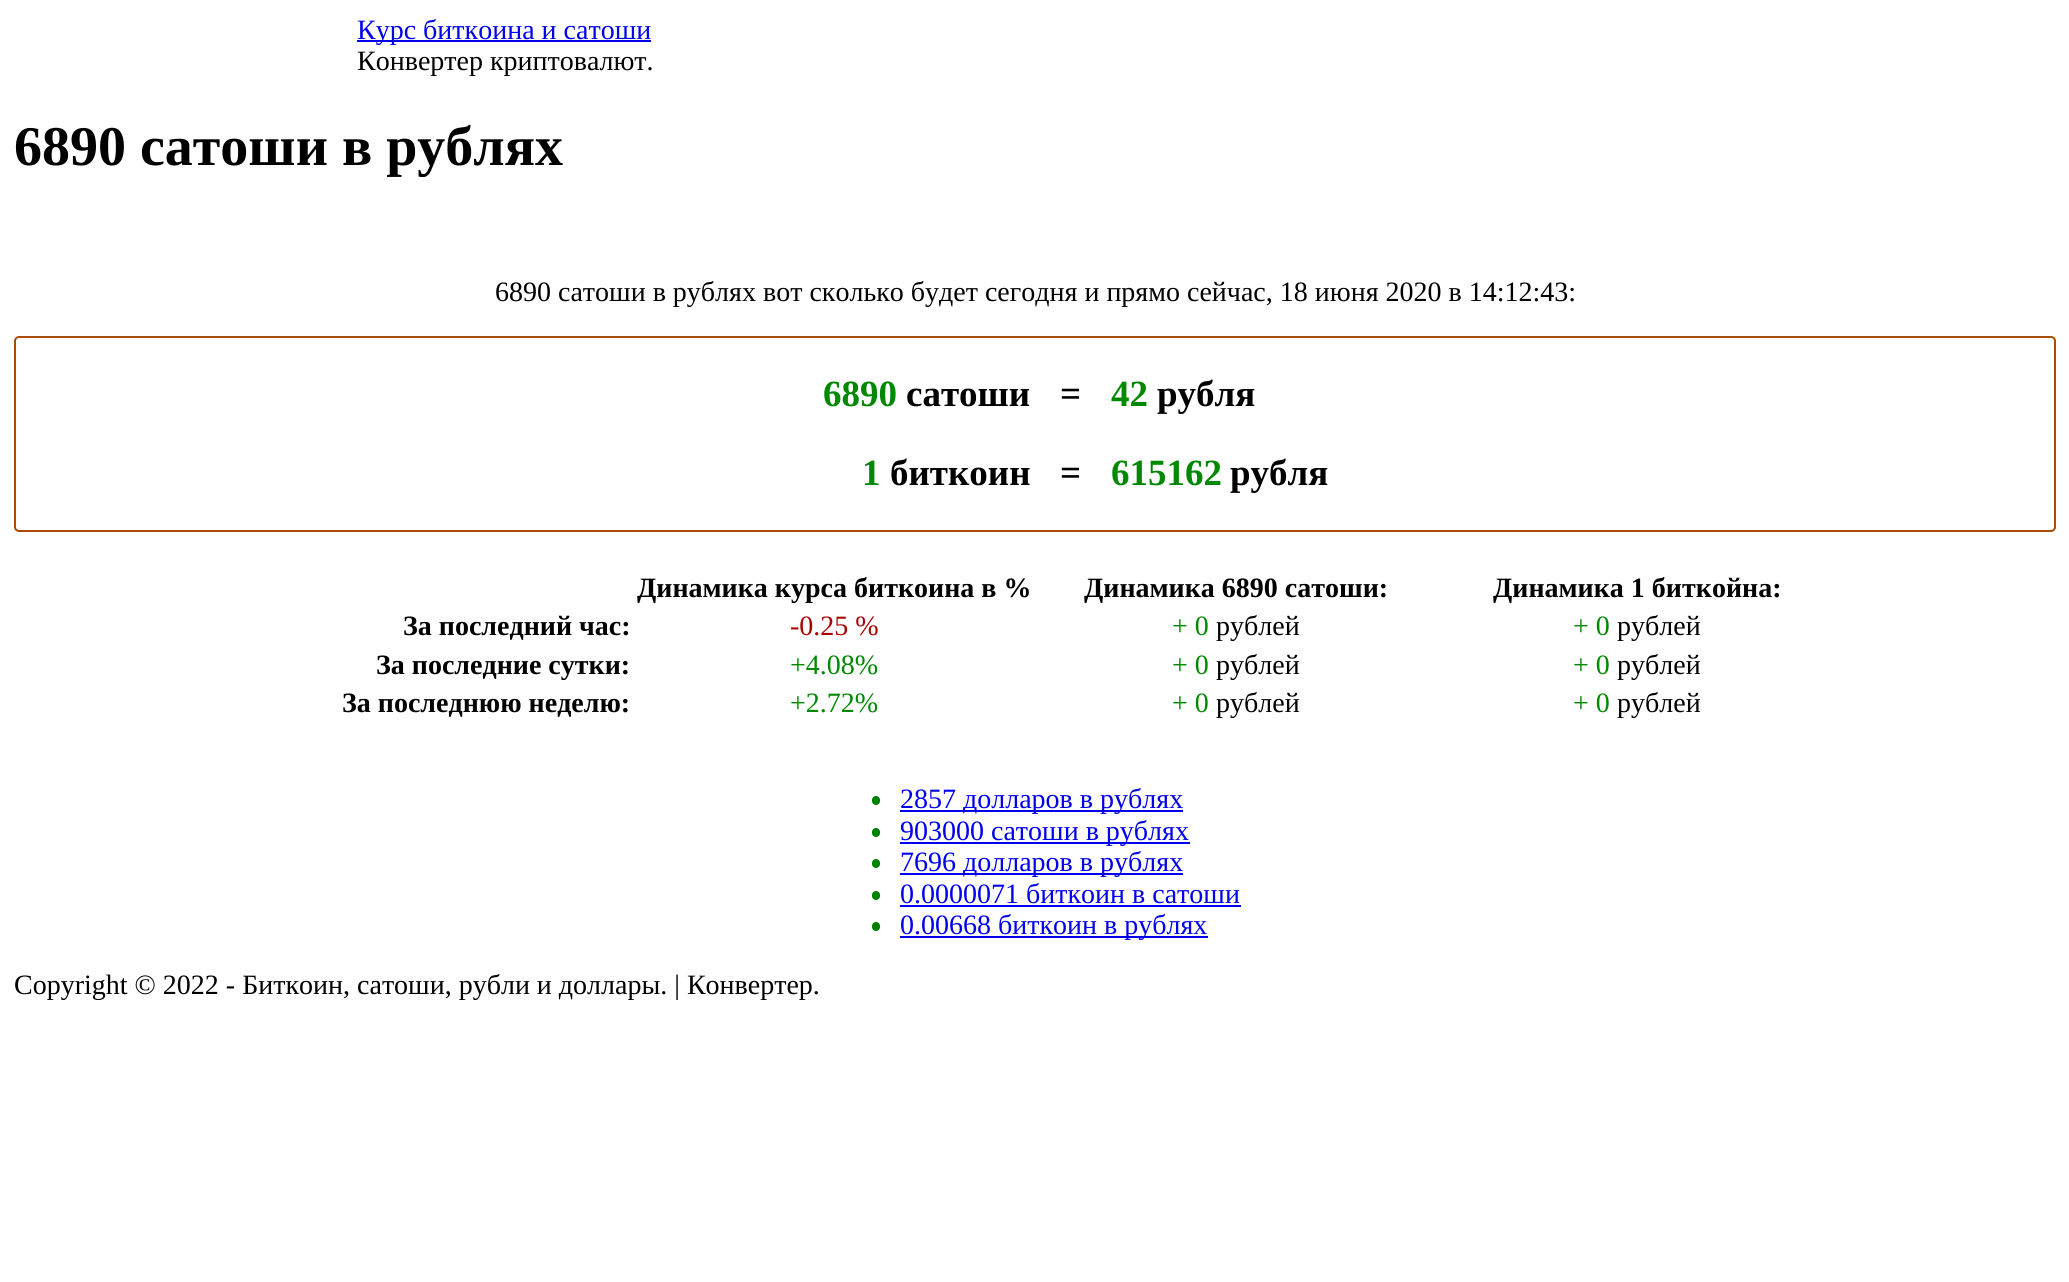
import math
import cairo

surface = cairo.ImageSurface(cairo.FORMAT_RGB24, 2069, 1282)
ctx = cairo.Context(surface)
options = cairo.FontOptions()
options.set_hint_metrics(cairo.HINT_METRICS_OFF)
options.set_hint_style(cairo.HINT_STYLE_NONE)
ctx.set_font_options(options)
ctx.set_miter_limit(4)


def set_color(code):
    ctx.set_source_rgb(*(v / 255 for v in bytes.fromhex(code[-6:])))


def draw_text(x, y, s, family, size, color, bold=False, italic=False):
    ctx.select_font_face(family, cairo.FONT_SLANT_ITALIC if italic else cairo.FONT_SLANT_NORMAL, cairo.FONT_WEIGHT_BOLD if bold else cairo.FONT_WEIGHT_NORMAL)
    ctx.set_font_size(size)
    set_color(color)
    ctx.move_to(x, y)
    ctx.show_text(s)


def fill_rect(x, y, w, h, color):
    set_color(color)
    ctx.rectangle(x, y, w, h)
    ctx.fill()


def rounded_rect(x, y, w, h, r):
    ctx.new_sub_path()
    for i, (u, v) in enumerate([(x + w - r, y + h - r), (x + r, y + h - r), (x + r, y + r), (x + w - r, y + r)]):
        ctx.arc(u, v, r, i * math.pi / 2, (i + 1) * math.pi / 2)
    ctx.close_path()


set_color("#ffffff")
ctx.paint()
fill_rect(357, 40, 294, 2, "#0000ee")
draw_text(357, 39, "Курс биткоина и сатоши", "Liberation Serif", 28, "#0000ee")
draw_text(357, 70, "Конвертер криптовалют.", "Liberation Serif", 28, "#000000")
draw_text(14, 165, "6890 сатоши в рублях", "Liberation Serif", 56, "#000000", bold=True)
draw_text(495, 301, "6890 сатоши в рублях вот сколько будет сегодня и прямо сейчас, 18 июня 2020 в 14:12:43:", "Liberation Serif", 28, "#000000")
rounded_rect(15, 337, 2040, 194, 4)
set_color("#aa4d00")
ctx.stroke()
draw_text(823, 406, "6890", "Liberation Serif", 37, "#008800", bold=True)
draw_text(906, 406, "сатоши", "Liberation Serif", 37, "#000000", bold=True)
draw_text(1060, 406, "=", "Liberation Serif", 37, "#000000", bold=True)
draw_text(1111, 406, "42", "Liberation Serif", 37, "#008800", bold=True)
draw_text(1157, 406, "рубля", "Liberation Serif", 37, "#000000", bold=True)
draw_text(862, 485, "1", "Liberation Serif", 37, "#008800", bold=True)
draw_text(890, 485, "биткоин", "Liberation Serif", 37, "#000000", bold=True)
draw_text(1060, 485, "=", "Liberation Serif", 37, "#000000", bold=True)
draw_text(1111, 485, "615162", "Liberation Serif", 37, "#008800", bold=True)
draw_text(1230, 485, "рубля", "Liberation Serif", 37, "#000000", bold=True)
draw_text(637, 597, "Динамика курса биткоина в %", "Liberation Serif", 28, "#000000", bold=True)
draw_text(1084, 597, "Динамика 6890 сатоши:", "Liberation Serif", 28, "#000000", bold=True)
draw_text(1493, 597, "Динамика 1 биткойна:", "Liberation Serif", 28, "#000000", bold=True)
draw_text(403, 635, "За последний час:", "Liberation Serif", 28, "#000000", bold=True)
draw_text(790, 635, "-0.25 %", "Liberation Serif", 28, "#aa0000")
draw_text(1172, 635, "+ 0", "Liberation Serif", 28, "#008800")
draw_text(1216, 635, "рублей", "Liberation Serif", 28, "#000000")
draw_text(1573, 635, "+ 0", "Liberation Serif", 28, "#008800")
draw_text(1617, 635, "рублей", "Liberation Serif", 28, "#000000")
draw_text(376, 674, "За последние сутки:", "Liberation Serif", 28, "#000000", bold=True)
draw_text(790, 674, "+4.08%", "Liberation Serif", 28, "#008800")
draw_text(1172, 674, "+ 0", "Liberation Serif", 28, "#008800")
draw_text(1216, 674, "рублей", "Liberation Serif", 28, "#000000")
draw_text(1573, 674, "+ 0", "Liberation Serif", 28, "#008800")
draw_text(1617, 674, "рублей", "Liberation Serif", 28, "#000000")
draw_text(342, 712, "За последнюю неделю:", "Liberation Serif", 28, "#000000", bold=True)
draw_text(790, 712, "+2.72%", "Liberation Serif", 28, "#008800")
draw_text(1172, 712, "+ 0", "Liberation Serif", 28, "#008800")
draw_text(1216, 712, "рублей", "Liberation Serif", 28, "#000000")
draw_text(1573, 712, "+ 0", "Liberation Serif", 28, "#008800")
draw_text(1617, 712, "рублей", "Liberation Serif", 28, "#000000")
set_color("#008000")
rounded_rect(872, 796, 8, 9, 4)
ctx.fill()
fill_rect(900, 810, 283, 2, "#0000ee")
draw_text(900, 808, "2857 долларов в рублях", "Liberation Serif", 28, "#0000ee")
set_color("#008000")
rounded_rect(872, 828, 8, 9, 4)
ctx.fill()
fill_rect(900, 842, 290, 2, "#0000ee")
draw_text(900, 840, "903000 сатоши в рублях", "Liberation Serif", 28, "#0000ee")
set_color("#008000")
rounded_rect(872, 859, 8, 9, 4)
ctx.fill()
fill_rect(900, 873, 283, 2, "#0000ee")
draw_text(900, 871, "7696 долларов в рублях", "Liberation Serif", 28, "#0000ee")
set_color("#008000")
rounded_rect(872, 891, 8, 9, 4)
ctx.fill()
draw_text(900, 903, "0.0000071 биткоин в сатоши", "Liberation Serif", 28, "#0000ee")
fill_rect(900, 905, 341, 2, "#0000ee")
set_color("#008000")
rounded_rect(872, 922, 8, 9, 4)
ctx.fill()
fill_rect(900, 936, 308, 2, "#0000ee")
draw_text(900, 934, "0.00668 биткоин в рублях", "Liberation Serif", 28, "#0000ee")
draw_text(14, 994, "Copyright © 2022 - Биткоин, сатоши, рубли и доллары. | Конвертер.", "Liberation Serif", 28, "#000000")
surface.write_to_png("output.png")
